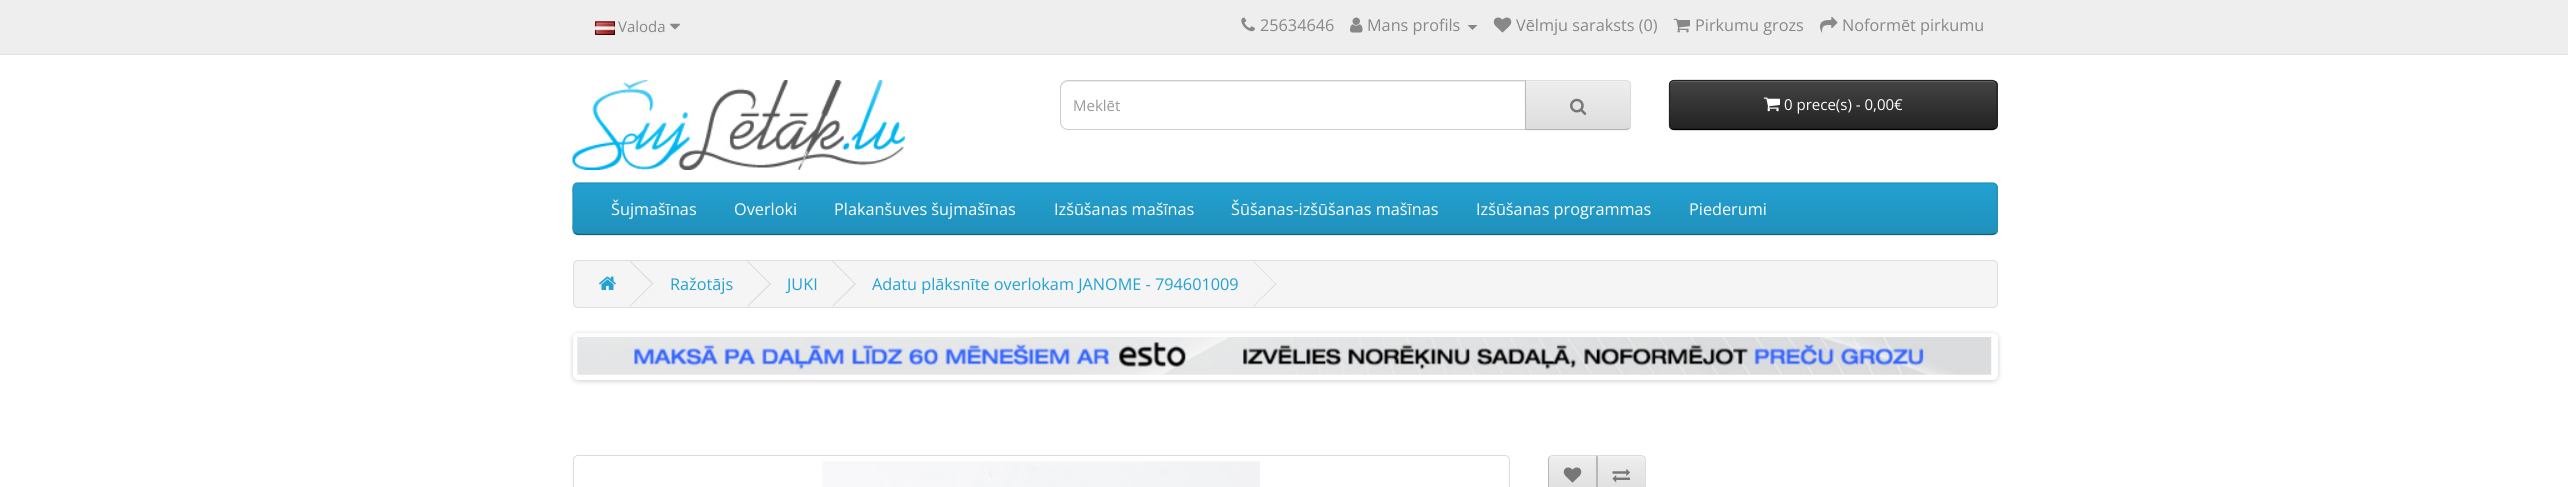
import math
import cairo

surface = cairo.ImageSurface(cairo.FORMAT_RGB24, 2568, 487)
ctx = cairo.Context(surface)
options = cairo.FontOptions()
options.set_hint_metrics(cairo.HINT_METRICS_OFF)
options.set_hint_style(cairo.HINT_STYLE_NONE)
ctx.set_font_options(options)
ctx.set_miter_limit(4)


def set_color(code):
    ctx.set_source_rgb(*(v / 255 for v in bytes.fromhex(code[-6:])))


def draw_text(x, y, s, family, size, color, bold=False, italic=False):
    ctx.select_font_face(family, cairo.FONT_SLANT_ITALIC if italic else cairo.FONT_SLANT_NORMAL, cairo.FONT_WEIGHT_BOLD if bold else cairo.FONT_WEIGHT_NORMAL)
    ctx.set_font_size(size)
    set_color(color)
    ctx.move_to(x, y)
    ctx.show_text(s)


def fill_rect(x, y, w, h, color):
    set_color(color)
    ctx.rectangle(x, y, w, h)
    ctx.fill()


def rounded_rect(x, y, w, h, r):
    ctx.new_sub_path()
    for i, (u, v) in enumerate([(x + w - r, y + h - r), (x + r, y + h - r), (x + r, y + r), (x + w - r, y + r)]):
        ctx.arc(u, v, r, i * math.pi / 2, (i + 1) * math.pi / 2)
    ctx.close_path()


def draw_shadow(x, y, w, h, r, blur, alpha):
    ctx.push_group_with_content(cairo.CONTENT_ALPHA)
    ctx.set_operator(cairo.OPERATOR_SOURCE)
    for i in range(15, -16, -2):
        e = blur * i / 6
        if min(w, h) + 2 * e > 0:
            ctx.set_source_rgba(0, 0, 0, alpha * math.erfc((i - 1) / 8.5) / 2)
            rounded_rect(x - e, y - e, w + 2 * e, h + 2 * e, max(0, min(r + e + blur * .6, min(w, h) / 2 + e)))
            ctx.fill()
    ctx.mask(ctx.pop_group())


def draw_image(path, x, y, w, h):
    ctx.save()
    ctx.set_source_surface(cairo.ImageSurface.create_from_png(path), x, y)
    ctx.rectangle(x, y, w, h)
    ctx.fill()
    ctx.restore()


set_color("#ffffff")
ctx.paint()
fill_rect(0, 0, 2568, 54, "#eeeeee")
fill_rect(0, 54, 2568, 1, "#e2e2e2")
draw_image("assets/img1.png", 595, 21, 20, 14)
draw_text(618, 32, "Valoda", "Open Sans", 15, "#888888")
draw_image("assets/img2.png", 670, 23, 10, 7)
draw_image("assets/img3.png", 1241, 17, 14, 15)
draw_text(1260, 31, "25634646", "Open Sans", 16.25, "#888888")
draw_image("assets/img4.png", 1350, 17, 13, 16)
draw_text(1367, 31, "Mans profils", "Open Sans", 16.25, "#888888")
ctx.new_path()
ctx.move_to(1467.5, 25)
ctx.line_to(1477.5, 25)
ctx.line_to(1472.5, 30)
ctx.close_path()
ctx.fill()
draw_image("assets/img5.png", 1493, 17, 19, 16)
draw_text(1516, 31, "Vēlmju saraksts (0)", "Open Sans", 16.25, "#888888")
draw_image("assets/img6.png", 1673, 18, 17, 15)
draw_text(1695, 31, "Pirkumu grozs", "Open Sans", 16.25, "#888888")
draw_image("assets/img7.png", 1820, 17, 18, 16)
draw_text(1842, 31, "Noformēt pirkumu", "Open Sans", 16.25, "#888888")
draw_image("assets/img8.png", 572, 80, 334, 90)
set_color("#ececec")
ctx.new_path()
ctx.move_to(1068, 82)
ctx.line_to(1525, 82)
ctx.line_to(1525, 81)
ctx.line_to(1067, 81)
ctx.curve_to(1062, 81, 1061, 85, 1061, 89)
ctx.curve_to(1061, 85, 1064, 82, 1068, 82)
ctx.close_path()
ctx.fill()
ctx.new_path()
ctx.move_to(1068, 80.5)
ctx.line_to(1525.5, 80.5)
ctx.line_to(1525.5, 129.5)
ctx.line_to(1068, 129.5)
ctx.curve_to(1064, 129.5, 1060.5, 126, 1060.5, 122)
ctx.line_to(1060.5, 88)
ctx.curve_to(1060.5, 84, 1064, 80.5, 1068, 80.5)
ctx.close_path()
set_color("#cccccc")
ctx.set_line_width(1)
ctx.stroke()
draw_text(1073, 111, "Meklēt", "Open Sans", 15, "#999999")
set_color("#000000")
draw_shadow(1525, 81, 106, 50, 5, 1, 0.05)
ctx.save()
ctx.new_path()
ctx.move_to(1525, 80)
ctx.line_to(1626, 80)
ctx.curve_to(1629, 80, 1631, 82, 1631, 85)
ctx.line_to(1631, 125)
ctx.curve_to(1631, 128, 1629, 130, 1626, 130)
ctx.line_to(1525, 130)
ctx.close_path()
ctx.clip()
gradient = cairo.LinearGradient(1578, 81, 1578, 129)
gradient.add_color_stop_rgba(0, 0.933, 0.933, 0.933, 1)
gradient.add_color_stop_rgba(1, 0.867, 0.867, 0.867, 1)
ctx.set_source(gradient)
ctx.rectangle(1526, 81, 105, 48)
ctx.fill()
ctx.restore()
set_color("#f1f1f1")
ctx.new_path()
ctx.move_to(1526, 82)
ctx.line_to(1626, 82)
ctx.curve_to(1628, 82, 1630, 84, 1630, 86)
ctx.line_to(1630, 85)
ctx.curve_to(1630, 83, 1628, 81, 1626, 81)
ctx.line_to(1526, 81)
ctx.close_path()
ctx.fill()
set_color("#dddddd")
ctx.new_path()
ctx.move_to(1525, 80)
ctx.line_to(1526, 81)
ctx.line_to(1626, 81)
ctx.line_to(1629, 82)
ctx.line_to(1630, 82)
ctx.curve_to(1629, 81, 1628, 80, 1626, 80)
ctx.close_path()
ctx.fill()
ctx.new_path()
ctx.move_to(1630, 82)
ctx.curve_to(1631, 82, 1631, 84, 1631, 85)
ctx.line_to(1631, 125)
ctx.curve_to(1631, 126, 1631, 128, 1630, 128)
ctx.line_to(1629, 128)
ctx.curve_to(1630, 127, 1630, 126, 1630, 125)
ctx.line_to(1630, 85)
ctx.curve_to(1630, 84, 1630, 83, 1629, 82)
ctx.close_path()
ctx.fill()
set_color("#b3b3b3")
ctx.new_path()
ctx.move_to(1626, 130)
ctx.curve_to(1628, 130, 1629, 129, 1630, 128)
ctx.line_to(1629, 128)
ctx.line_to(1626, 129)
ctx.line_to(1526, 129)
ctx.line_to(1525, 130)
ctx.close_path()
ctx.fill()
set_color("#b7b7b7")
ctx.new_path()
ctx.move_to(1525, 80)
ctx.line_to(1525, 130)
ctx.line_to(1526, 129)
ctx.line_to(1526, 81)
ctx.close_path()
ctx.fill()
draw_image("assets/img9.png", 1570, 98, 17, 17)
set_color("#000000")
draw_shadow(1669, 81, 329, 50, 5, 1, 0.05)
ctx.save()
rounded_rect(1669, 80, 329, 50, 5)
ctx.clip()
gradient = cairo.LinearGradient(1833, 81, 1833, 129)
gradient.add_color_stop_rgba(0, 0.267, 0.267, 0.267, 1)
gradient.add_color_stop_rgba(1, 0.133, 0.133, 0.133, 1)
ctx.set_source(gradient)
ctx.rectangle(1669, 81, 329, 48)
ctx.fill()
ctx.restore()
set_color("#696969")
ctx.new_path()
ctx.move_to(1674, 82)
ctx.line_to(1992, 82)
ctx.curve_to(1995, 82, 1996, 84, 1996, 86)
ctx.line_to(1996, 85)
ctx.curve_to(1996, 83, 1994, 81, 1992, 81)
ctx.line_to(1674, 81)
ctx.curve_to(1672, 81, 1670, 83, 1670, 85)
ctx.line_to(1670, 86)
ctx.curve_to(1670, 84, 1672, 82, 1674, 82)
ctx.close_path()
ctx.fill()
ctx.new_path()
ctx.move_to(1995.5, 128)
ctx.curve_to(1995, 129, 1993.5, 129.5, 1992.5, 129.5)
ctx.line_to(1674, 129.5)
ctx.curve_to(1672.5, 129.5, 1671.5, 129, 1670.5, 128)
set_color("#000000")
ctx.set_line_width(1.2)
ctx.stroke()
ctx.new_path()
ctx.move_to(1670.5, 128)
ctx.curve_to(1670, 127.5, 1669.5, 126, 1669.5, 125)
ctx.line_to(1669.5, 85)
ctx.curve_to(1669.5, 84, 1670, 82.5, 1670.5, 82)
ctx.curve_to(1671.5, 81, 1672.5, 80.5, 1674, 80.5)
ctx.line_to(1992.5, 80.5)
ctx.curve_to(1993.5, 80.5, 1995, 81, 1995.5, 82)
ctx.curve_to(1996.5, 82.5, 1997, 84, 1997, 85)
ctx.line_to(1997, 125)
ctx.curve_to(1997, 126, 1996.5, 127.5, 1995.5, 128)
set_color("#222222")
ctx.stroke()
draw_image("assets/img10.png", 1763, 97, 17, 15)
draw_text(1784, 110, "0 prece(s) - 0,00€", "Open Sans", 15, "#ffffff")
set_color("#229ac8")
rounded_rect(573, 183, 1425, 52, 5)
ctx.fill()
ctx.save()
rounded_rect(573, 183, 1425, 52, 5)
ctx.clip()
gradient = cairo.LinearGradient(1285, 184, 1285, 234)
gradient.add_color_stop_rgba(0, 0.137, 0.631, 0.82, 1)
gradient.add_color_stop_rgba(1, 0.122, 0.565, 0.733, 1)
ctx.set_source(gradient)
ctx.rectangle(573, 184, 1425, 50)
ctx.fill()
ctx.restore()
ctx.new_path()
ctx.move_to(1995.5, 233)
ctx.line_to(1992.5, 234.5)
ctx.line_to(577.5, 234.5)
ctx.line_to(574.5, 233)
set_color("#145e7a")
ctx.stroke()
ctx.new_path()
ctx.move_to(574.5, 233)
ctx.curve_to(572, 230.5, 573, 225, 573, 223)
ctx.line_to(573, 194.5)
ctx.curve_to(573, 191.5, 571.5, 183, 577.5, 183)
ctx.line_to(1992.5, 183)
ctx.curve_to(1998.5, 183, 1997, 191.5, 1997, 194.5)
ctx.line_to(1997, 223)
ctx.curve_to(1997, 225, 1998, 230.5, 1995.5, 233)
set_color("#1f90bb")
ctx.stroke()
draw_text(611, 215, "Šujmašīnas", "Open Sans", 16.25, "#ffffff")
draw_text(734, 215, "Overloki", "Open Sans", 16.25, "#ffffff")
draw_text(834, 215, "Plakanšuves šujmašīnas", "Open Sans", 16.25, "#ffffff")
draw_text(1054, 215, "Izšūšanas mašīnas", "Open Sans", 16.25, "#ffffff")
draw_text(1231, 215, "Šūšanas-izšūšanas mašīnas", "Open Sans", 16.25, "#ffffff")
draw_text(1476, 215, "Izšūšanas programmas", "Open Sans", 16.25, "#ffffff")
draw_text(1689, 215, "Piederumi", "Open Sans", 16.25, "#ffffff")
set_color("#f5f5f5")
rounded_rect(573.5, 260.5, 1424, 47, 4.5)
ctx.fill_preserve()
set_color("#dddddd")
ctx.set_line_width(1)
ctx.stroke()
draw_image("assets/img11.png", 599, 276, 17, 14)
ctx.new_path()
ctx.move_to(629.5, 261.5)
ctx.line_to(630.5, 261)
ctx.line_to(653.5, 283.5)
ctx.line_to(652.5, 284.5)
ctx.close_path()
ctx.fill()
ctx.new_path()
ctx.move_to(629.5, 306)
ctx.line_to(652.5, 283)
ctx.line_to(653.5, 283.5)
ctx.line_to(630.5, 306.5)
ctx.close_path()
ctx.fill()
draw_text(670, 290, "Ražotājs", "Open Sans", 16.25, "#23a1d1")
set_color("#dddddd")
ctx.new_path()
ctx.move_to(747, 261.5)
ctx.line_to(748, 261)
ctx.line_to(771, 284)
ctx.line_to(770, 284.5)
ctx.close_path()
ctx.fill()
ctx.new_path()
ctx.move_to(747, 306)
ctx.line_to(770, 283)
ctx.line_to(771, 284)
ctx.line_to(748, 306.5)
ctx.close_path()
ctx.fill()
draw_text(787, 290, "JUKI", "Open Sans", 16.25, "#23a1d1")
set_color("#dddddd")
ctx.new_path()
ctx.move_to(832, 261.5)
ctx.line_to(833, 261)
ctx.line_to(856, 284)
ctx.line_to(855, 284.5)
ctx.close_path()
ctx.fill()
ctx.new_path()
ctx.move_to(832, 306)
ctx.line_to(855, 283)
ctx.line_to(856, 284)
ctx.line_to(833, 306.5)
ctx.close_path()
ctx.fill()
draw_text(872, 290, "Adatu plāksnīte overlokam JANOME - 794601009", "Open Sans", 16.25, "#23a1d1")
set_color("#dddddd")
ctx.new_path()
ctx.move_to(1253, 261.5)
ctx.line_to(1253.5, 261)
ctx.line_to(1276.5, 284)
ctx.line_to(1276, 284.5)
ctx.close_path()
ctx.fill()
ctx.new_path()
ctx.move_to(1253, 306)
ctx.line_to(1276, 283)
ctx.line_to(1276.5, 284)
ctx.line_to(1253.5, 306.5)
ctx.close_path()
ctx.fill()
set_color("#000000")
draw_shadow(573, 334, 1425, 47, 5, 2.5, 0.2)
set_color("#ffffff")
rounded_rect(575.5, 335.5, 1420, 42, 2.5)
ctx.fill_preserve()
ctx.set_line_width(5)
ctx.stroke()
draw_image("assets/img12.png", 577, 337, 1415, 38)
rounded_rect(573.5, 455.5, 936, 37, 4.5)
set_color("#dddddd")
ctx.set_line_width(1)
ctx.stroke()
draw_image("assets/img13.png", 822, 461, 438, 26)
ctx.save()
ctx.new_path()
ctx.move_to(1553, 455)
ctx.line_to(1598, 455)
ctx.line_to(1598, 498)
ctx.line_to(1553, 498)
ctx.curve_to(1550, 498, 1548, 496, 1548, 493)
ctx.line_to(1548, 460)
ctx.curve_to(1548, 457, 1550, 455, 1553, 455)
ctx.close_path()
ctx.clip()
gradient = cairo.LinearGradient(1573, 456, 1573, 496)
gradient.add_color_stop_rgba(0, 0.933, 0.933, 0.933, 1)
gradient.add_color_stop_rgba(1, 0.867, 0.867, 0.867, 1)
ctx.set_source(gradient)
ctx.rectangle(1548, 456, 48, 31)
ctx.fill()
ctx.restore()
set_color("#f1f1f1")
ctx.new_path()
ctx.move_to(1552, 458)
ctx.line_to(1596, 458)
ctx.line_to(1596, 456)
ctx.line_to(1553, 456)
ctx.curve_to(1551, 456, 1549, 458, 1549, 460)
ctx.line_to(1549, 461)
ctx.curve_to(1549, 459, 1550, 458, 1552, 458)
ctx.close_path()
ctx.fill()
set_color("#dddddd")
ctx.new_path()
ctx.move_to(1552, 455)
ctx.curve_to(1551, 455, 1550, 456, 1549, 457)
ctx.line_to(1550, 457)
ctx.line_to(1551, 456)
ctx.line_to(1596, 456)
ctx.line_to(1598, 455)
ctx.close_path()
ctx.fill()
set_color("#b7b7b7")
ctx.new_path()
ctx.move_to(1549, 456.5)
ctx.curve_to(1548.5, 457.5, 1548, 458.5, 1548, 460)
ctx.line_to(1548, 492)
ctx.curve_to(1548, 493.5, 1548.5, 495, 1549, 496)
ctx.line_to(1550, 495)
ctx.curve_to(1549.5, 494.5, 1549, 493.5, 1549, 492)
ctx.line_to(1549, 460)
ctx.curve_to(1549, 459, 1549, 458, 1550, 457)
ctx.close_path()
ctx.fill()
draw_image("assets/img14.png", 1563, 467, 19, 16)
ctx.save()
ctx.new_path()
ctx.move_to(1596, 455)
ctx.line_to(1641, 455)
ctx.curve_to(1644, 455, 1646, 457, 1646, 460)
ctx.line_to(1646, 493)
ctx.curve_to(1646, 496, 1644, 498, 1641, 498)
ctx.line_to(1596, 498)
ctx.close_path()
ctx.clip()
gradient = cairo.LinearGradient(1621, 456, 1621, 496)
gradient.add_color_stop_rgba(0, 0.933, 0.933, 0.933, 1)
gradient.add_color_stop_rgba(1, 0.867, 0.867, 0.867, 1)
ctx.set_source(gradient)
ctx.rectangle(1597, 456, 49, 31)
ctx.fill()
ctx.restore()
set_color("#f1f1f1")
ctx.new_path()
ctx.move_to(1598, 458)
ctx.line_to(1641, 458)
ctx.curve_to(1643, 458, 1645, 459, 1645, 461)
ctx.line_to(1645, 460)
ctx.curve_to(1645, 458, 1643, 456, 1641, 456)
ctx.line_to(1598, 456)
ctx.close_path()
ctx.fill()
set_color("#dddddd")
ctx.new_path()
ctx.move_to(1598, 456)
ctx.line_to(1641, 456)
ctx.curve_to(1642, 456, 1643, 457, 1644, 457)
ctx.line_to(1645, 457)
ctx.curve_to(1644, 456, 1643, 455, 1641, 455)
ctx.line_to(1596, 455)
ctx.line_to(1598, 457)
ctx.close_path()
ctx.fill()
ctx.new_path()
ctx.move_to(1644.5, 456.5)
ctx.curve_to(1645.5, 457.5, 1646, 458.5, 1646, 460)
ctx.line_to(1646, 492)
ctx.curve_to(1646, 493.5, 1645.5, 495, 1644.5, 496)
ctx.line_to(1644, 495)
ctx.curve_to(1644.5, 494.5, 1645, 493.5, 1645, 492)
ctx.line_to(1645, 460)
ctx.curve_to(1645, 459, 1644.5, 458, 1644, 457.5)
ctx.close_path()
ctx.fill()
set_color("#b7b7b7")
ctx.new_path()
ctx.move_to(1596, 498)
ctx.line_to(1598, 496)
ctx.line_to(1598, 457)
ctx.line_to(1596, 455)
ctx.close_path()
ctx.fill()
draw_image("assets/img15.png", 1612, 469, 18, 14)
surface.write_to_png("output.png")
